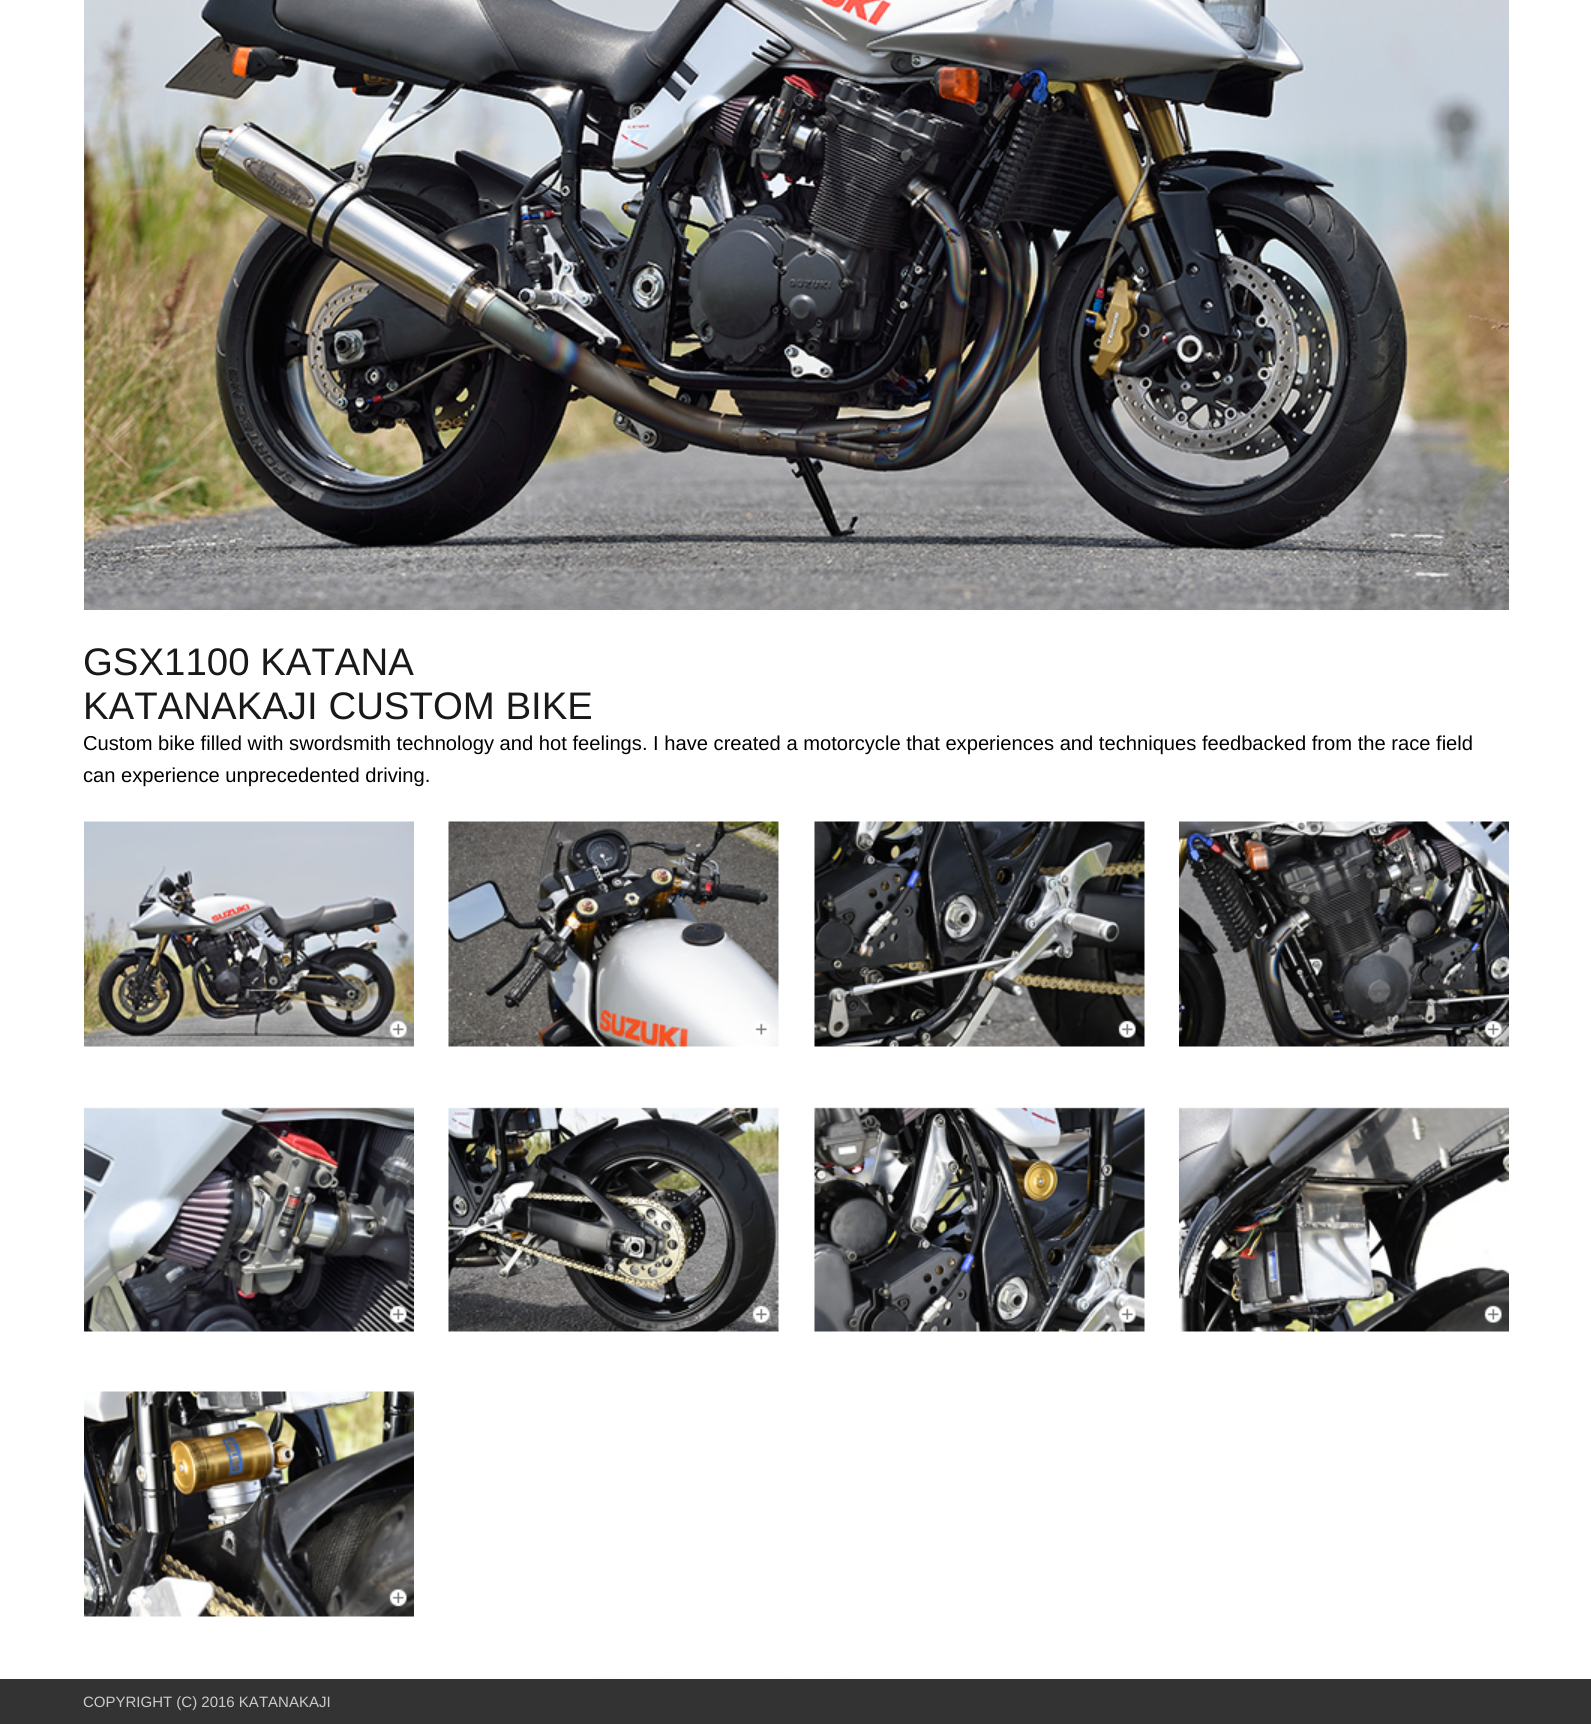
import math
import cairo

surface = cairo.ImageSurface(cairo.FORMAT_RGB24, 1591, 1724)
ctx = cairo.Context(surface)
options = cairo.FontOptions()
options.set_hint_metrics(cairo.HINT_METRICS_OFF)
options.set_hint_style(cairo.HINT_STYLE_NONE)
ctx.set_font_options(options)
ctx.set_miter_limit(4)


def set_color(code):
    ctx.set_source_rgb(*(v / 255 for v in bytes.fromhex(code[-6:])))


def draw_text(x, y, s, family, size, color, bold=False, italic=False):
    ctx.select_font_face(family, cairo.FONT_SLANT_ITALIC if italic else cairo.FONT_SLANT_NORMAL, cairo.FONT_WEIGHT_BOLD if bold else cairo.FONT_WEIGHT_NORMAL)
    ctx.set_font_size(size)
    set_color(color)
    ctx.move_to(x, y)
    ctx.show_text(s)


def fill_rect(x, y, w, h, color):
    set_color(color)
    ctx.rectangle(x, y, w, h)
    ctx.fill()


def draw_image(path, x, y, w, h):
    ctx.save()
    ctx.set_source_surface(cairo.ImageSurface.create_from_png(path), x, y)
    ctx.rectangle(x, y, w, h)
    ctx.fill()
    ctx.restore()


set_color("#ffffff")
ctx.paint()
draw_image("assets/img1.png", 84, 0, 1425, 610)
draw_text(83, 675, "GSX1100 KATANA", "Liberation Sans", 38.4, "#191919")
draw_text(83, 719, "KATANAKAJI CUSTOM BIKE", "Liberation Sans", 38.4, "#191919")
draw_text(83, 750, "Custom bike filled with swordsmith technology and hot feelings. I have created a motorcycle that experiences and techniques feedbacked from the race field", "Liberation Sans", 20.15, "#000000")
draw_text(83, 782, "can experience unprecedented driving.", "Liberation Sans", 20.15, "#000000")
draw_image("assets/img2.png", 84, 821, 330, 226)
draw_image("assets/img3.png", 448, 821, 331, 226)
draw_image("assets/img4.png", 814, 821, 331, 226)
draw_image("assets/img5.png", 1179, 821, 330, 226)
draw_image("assets/img6.png", 84, 1107, 330, 225)
draw_image("assets/img7.png", 448, 1106, 331, 226)
draw_image("assets/img8.png", 814, 1107, 331, 225)
draw_image("assets/img9.png", 1179, 1107, 330, 225)
draw_image("assets/img10.png", 84, 1391, 330, 226)
draw_image("assets/img11.png", 588, 1677, 84, 2)
draw_image("assets/img12.png", 774, 1677, 86, 2)
fill_rect(0, 1679, 1591, 45, "#333333")
draw_text(83, 1707, "COPYRIGHT (C) 2016 KATANAKAJI", "Liberation Sans", 15, "#cbcbcb")
surface.write_to_png("output.png")
